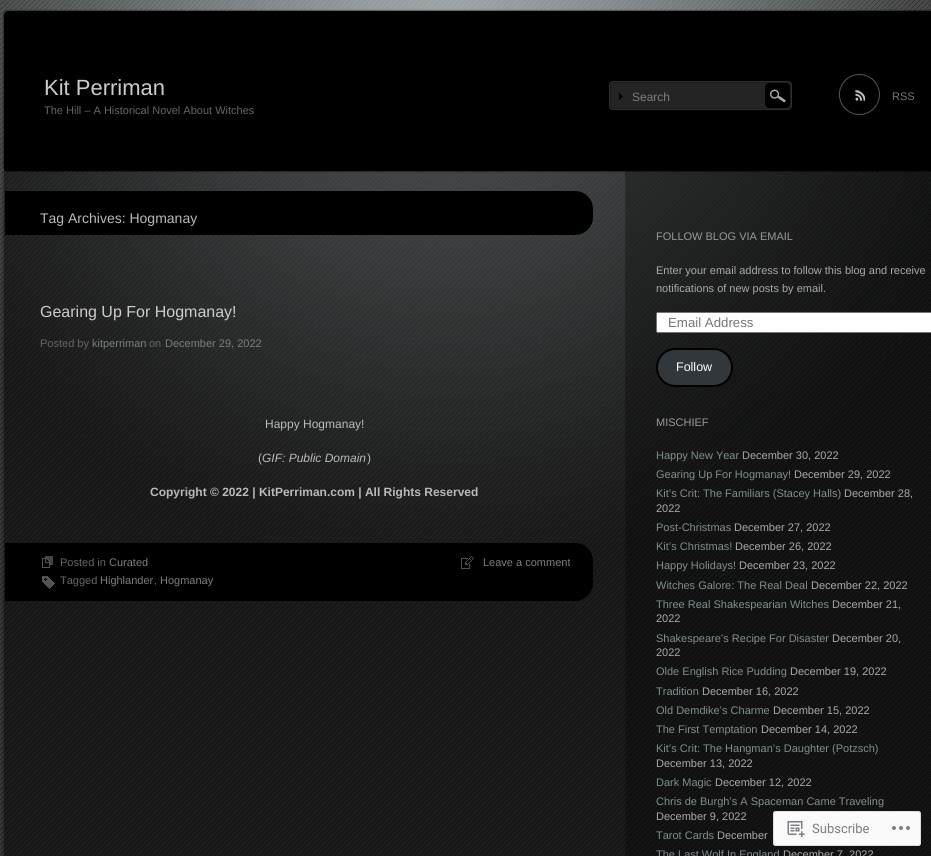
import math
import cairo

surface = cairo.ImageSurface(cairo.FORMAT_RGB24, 931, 856)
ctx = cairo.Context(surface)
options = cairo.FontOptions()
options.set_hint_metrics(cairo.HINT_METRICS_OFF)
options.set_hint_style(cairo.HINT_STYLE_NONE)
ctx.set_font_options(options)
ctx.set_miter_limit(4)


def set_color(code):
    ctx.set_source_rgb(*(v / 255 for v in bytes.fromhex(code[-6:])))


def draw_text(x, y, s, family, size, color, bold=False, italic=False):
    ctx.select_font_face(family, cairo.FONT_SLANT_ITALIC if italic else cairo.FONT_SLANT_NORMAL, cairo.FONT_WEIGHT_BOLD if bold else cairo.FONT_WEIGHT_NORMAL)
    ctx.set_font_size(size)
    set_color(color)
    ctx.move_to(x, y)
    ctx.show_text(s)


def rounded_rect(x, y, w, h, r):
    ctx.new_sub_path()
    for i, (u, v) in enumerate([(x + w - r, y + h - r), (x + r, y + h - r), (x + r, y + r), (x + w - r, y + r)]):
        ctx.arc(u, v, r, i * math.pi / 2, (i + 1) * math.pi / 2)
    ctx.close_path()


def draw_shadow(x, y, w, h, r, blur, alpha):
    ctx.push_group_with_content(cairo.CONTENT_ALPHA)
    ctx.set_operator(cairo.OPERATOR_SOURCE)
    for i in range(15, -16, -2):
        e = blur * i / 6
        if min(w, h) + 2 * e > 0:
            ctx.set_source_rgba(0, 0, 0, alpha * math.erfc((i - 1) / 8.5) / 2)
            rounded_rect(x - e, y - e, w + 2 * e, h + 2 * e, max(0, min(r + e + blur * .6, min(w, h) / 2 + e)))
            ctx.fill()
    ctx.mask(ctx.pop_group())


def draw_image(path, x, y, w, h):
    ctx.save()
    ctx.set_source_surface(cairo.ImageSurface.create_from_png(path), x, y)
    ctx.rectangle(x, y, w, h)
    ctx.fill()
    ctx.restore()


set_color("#ffffff")
ctx.paint()
draw_image("assets/img1.png", 0, 0, 931, 856)
draw_image("assets/img2.png", 0, 0, 931, 543)
draw_image("assets/img6.png", 1, 171, 930, 685)
set_color("#000000")
draw_shadow(4, 11, 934, 160, 4, 1, 1)
set_color("#000000")
ctx.new_path()
ctx.move_to(8, 11)
ctx.line_to(931, 11)
ctx.curve_to(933, 11, 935, 13, 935, 15)
ctx.line_to(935, 171)
ctx.line_to(4, 171)
ctx.line_to(4, 15)
ctx.curve_to(4, 13, 6, 11, 8, 11)
ctx.close_path()
ctx.fill()
draw_text(44, 95, "Kit Perriman", "Liberation Sans", 22, "#cccccc")
draw_text(44, 114, "The Hill – A Historical Novel About Witches", "Liberation Sans", 11, "#666666")
draw_image("assets/img3.png", 609, 81, 156, 29)
draw_text(632, 101, "Search", "Liberation Sans", 12, "#797f80")
draw_image("assets/img4.png", 765, 81, 27, 29)
draw_image("assets/img5.png", 839, 74, 41, 41)
draw_text(892, 100, "RSS", "Liberation Sans", 11, "#757575")
set_color("#000000")
ctx.new_path()
ctx.move_to(5, 191)
ctx.line_to(575, 191)
ctx.curve_to(585, 191, 593, 199, 593, 209)
ctx.line_to(593, 217)
ctx.curve_to(593, 227, 585, 235, 575, 235)
ctx.line_to(5, 235)
ctx.close_path()
ctx.fill()
draw_text(40, 223, "Tag Archives: Hogmanay", "Liberation Sans", 14, "#b8babb")
draw_text(40, 317, "Gearing Up For Hogmanay!", "Liberation Sans", 16, "#cccccc")
draw_text(40, 347, "Posted by", "Liberation Sans", 11, "#666666")
draw_text(92, 347, "kitperriman", "Liberation Sans", 11, "#797f80")
draw_text(149, 347, "on", "Liberation Sans", 11, "#666666")
draw_text(165, 347, "December 29, 2022", "Liberation Sans", 11, "#797f80")
draw_text(265, 428, "Happy Hogmanay!", "Liberation Sans", 12, "#b8babb")
draw_text(258, 462, "(", "Liberation Sans", 12, "#b8babb")
draw_text(262, 462, "GIF: Public Domain", "Liberation Sans", 12, "#b8babb", italic=True)
draw_text(367, 462, ")", "Liberation Sans", 12, "#b8babb")
draw_text(150, 496, "Copyright © 2022 | KitPerriman.com | All Rights Reserved", "Liberation Sans", 12, "#b8babb", bold=True)
set_color("#000000")
ctx.new_path()
ctx.move_to(5, 543)
ctx.line_to(575, 543)
ctx.curve_to(585, 543, 593, 551, 593, 561)
ctx.line_to(593, 583)
ctx.curve_to(593, 593, 585, 601, 575, 601)
ctx.line_to(5, 601)
ctx.close_path()
ctx.fill()
draw_image("assets/img7.png", 42, 556, 11, 12)
draw_text(60, 566, "Posted in", "Liberation Sans", 11, "#666666")
draw_text(109, 566, "Curated", "Liberation Sans", 11, "#797f80")
draw_image("assets/img8.png", 461, 556, 13, 13)
draw_text(483, 566, "Leave a comment", "Liberation Sans", 11, "#797f80")
draw_image("assets/img9.png", 42, 576, 13, 13)
draw_text(60, 584, "Tagged", "Liberation Sans", 11, "#666666")
draw_text(100, 584, "Highlander", "Liberation Sans", 11, "#797f80")
draw_text(154, 584, ",", "Liberation Sans", 11, "#666666")
draw_text(160, 584, "Hogmanay", "Liberation Sans", 11, "#797f80")
draw_text(656, 240, "FOLLOW BLOG VIA EMAIL", "Liberation Sans", 11, "#999999")
draw_text(656, 274, "Enter your email address to follow this blog and receive", "Liberation Sans", 11, "#aaaaaa")
draw_text(656, 292, "notifications of new posts by email.", "Liberation Sans", 11, "#aaaaaa")
set_color("#ffffff")
rounded_rect(656.5, 312.5, 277, 20, 1.5)
ctx.fill_preserve()
set_color("#767676")
ctx.set_line_width(1)
ctx.stroke()
draw_text(668, 327, "Email Address", "Liberation Sans", 13.25, "#757575")
set_color("#32373c")
rounded_rect(657, 349, 75, 37, 18.5)
ctx.fill_preserve()
set_color("#000000")
ctx.set_line_width(2)
ctx.stroke()
draw_text(676, 371, "Follow", "Liberation Sans", 12.5, "#ffffff")
draw_text(656, 426, "MISCHIEF", "Liberation Sans", 11, "#999999")
draw_text(656, 459, "Happy New Year", "Liberation Sans", 11, "#7f8e91")
draw_text(742, 459, "December 30, 2022", "Liberation Sans", 11, "#aaaaaa")
draw_text(656, 478, "Gearing Up For Hogmanay!", "Liberation Sans", 11, "#7f8e91")
draw_text(794, 478, "December 29, 2022", "Liberation Sans", 11, "#aaaaaa")
draw_text(656, 497, "Kit’s Crit: The Familiars (Stacey Halls)", "Liberation Sans", 11, "#7f8e91")
draw_text(844, 497, "December 28,", "Liberation Sans", 11, "#aaaaaa")
draw_text(656, 512, "2022", "Liberation Sans", 11, "#aaaaaa")
draw_text(656, 531, "Post-Christmas", "Liberation Sans", 11, "#7f8e91")
draw_text(734, 531, "December 27, 2022", "Liberation Sans", 11, "#aaaaaa")
draw_text(656, 550, "Kit’s Christmas!", "Liberation Sans", 11, "#7f8e91")
draw_text(735, 550, "December 26, 2022", "Liberation Sans", 11, "#aaaaaa")
draw_text(656, 569, "Happy Holidays!", "Liberation Sans", 11, "#7f8e91")
draw_text(739, 569, "December 23, 2022", "Liberation Sans", 11, "#aaaaaa")
draw_text(656, 589, "Witches Galore: The Real Deal", "Liberation Sans", 11, "#7f8e91")
draw_text(811, 589, "December 22, 2022", "Liberation Sans", 11, "#aaaaaa")
draw_text(656, 608, "Three Real Shakespearian Witches", "Liberation Sans", 11, "#7f8e91")
draw_text(832, 608, "December 21,", "Liberation Sans", 11, "#aaaaaa")
draw_text(656, 622, "2022", "Liberation Sans", 11, "#aaaaaa")
draw_text(656, 642, "Shakespeare’s Recipe For Disaster", "Liberation Sans", 11, "#7f8e91")
draw_text(832, 642, "December 20,", "Liberation Sans", 11, "#aaaaaa")
draw_text(656, 656, "2022", "Liberation Sans", 11, "#aaaaaa")
draw_text(656, 675, "Olde English Rice Pudding", "Liberation Sans", 11, "#7f8e91")
draw_text(790, 675, "December 19, 2022", "Liberation Sans", 11, "#aaaaaa")
draw_text(656, 695, "Tradition", "Liberation Sans", 11, "#7f8e91")
draw_text(702, 695, "December 16, 2022", "Liberation Sans", 11, "#aaaaaa")
draw_text(656, 714, "Old Demdike’s Charme", "Liberation Sans", 11, "#7f8e91")
draw_text(773, 714, "December 15, 2022", "Liberation Sans", 11, "#aaaaaa")
draw_text(656, 733, "The First Temptation", "Liberation Sans", 11, "#7f8e91")
draw_text(761, 733, "December 14, 2022", "Liberation Sans", 11, "#aaaaaa")
draw_text(656, 752, "Kit’s Crit: The Hangman’s Daughter (Potzsch)", "Liberation Sans", 11, "#7f8e91")
draw_text(656, 767, "December 13, 2022", "Liberation Sans", 11, "#aaaaaa")
draw_text(656, 786, "Dark Magic", "Liberation Sans", 11, "#7f8e91")
draw_text(715, 786, "December 12, 2022", "Liberation Sans", 11, "#aaaaaa")
draw_text(656, 805, "Chris de Burgh’s A Spaceman Came Traveling", "Liberation Sans", 11, "#7f8e91")
draw_text(656, 820, "December 9, 2022", "Liberation Sans", 11, "#aaaaaa")
draw_text(656, 839, "Tarot Cards", "Liberation Sans", 11, "#7f8e91")
draw_text(717, 839, "December", "Liberation Sans", 11, "#aaaaaa")
draw_text(656, 858, "The Last Wolf In England", "Liberation Sans", 11, "#7f8e91")
draw_text(783, 858, "December 7, 2022", "Liberation Sans", 11, "#aaaaaa")
ctx.set_source_rgba(1, 1, 1, 0.98)
rounded_rect(773, 811, 148, 35, 3)
ctx.fill()
rounded_rect(773.5, 811.5, 147, 34, 2.5)
ctx.set_source_rgba(0.863, 0.863, 0.871, 0.98)
ctx.set_line_width(1)
ctx.stroke()
draw_image("assets/img10.png", 787, 821, 18, 17)
draw_text(812, 833, "Subscribe", "Roboto", 13, "#797f80")
draw_image("assets/img11.png", 892, 826, 18, 4)
surface.write_to_png("output.png")
